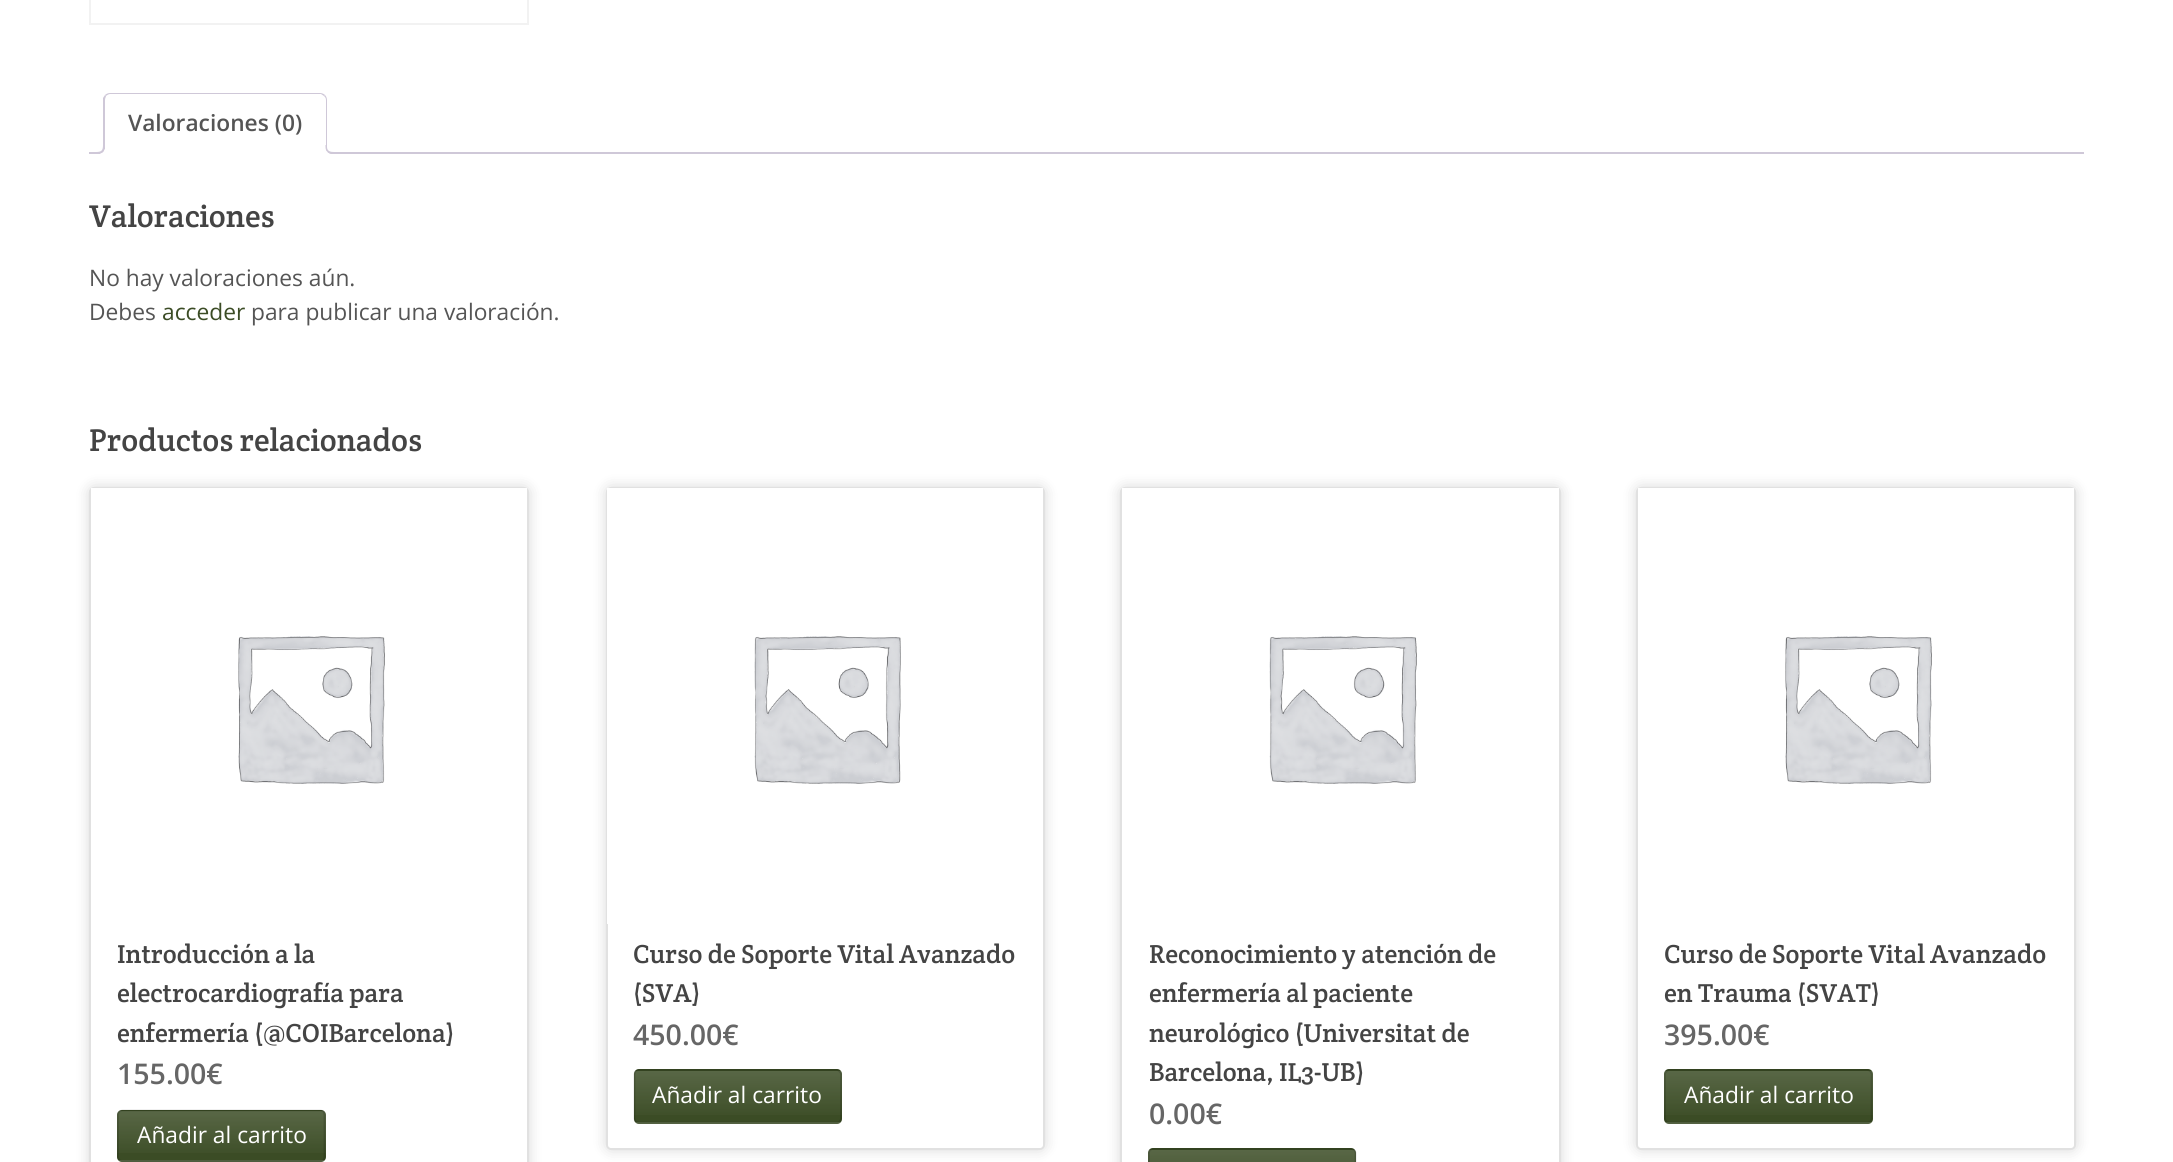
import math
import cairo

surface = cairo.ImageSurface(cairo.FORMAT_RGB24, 2173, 1162)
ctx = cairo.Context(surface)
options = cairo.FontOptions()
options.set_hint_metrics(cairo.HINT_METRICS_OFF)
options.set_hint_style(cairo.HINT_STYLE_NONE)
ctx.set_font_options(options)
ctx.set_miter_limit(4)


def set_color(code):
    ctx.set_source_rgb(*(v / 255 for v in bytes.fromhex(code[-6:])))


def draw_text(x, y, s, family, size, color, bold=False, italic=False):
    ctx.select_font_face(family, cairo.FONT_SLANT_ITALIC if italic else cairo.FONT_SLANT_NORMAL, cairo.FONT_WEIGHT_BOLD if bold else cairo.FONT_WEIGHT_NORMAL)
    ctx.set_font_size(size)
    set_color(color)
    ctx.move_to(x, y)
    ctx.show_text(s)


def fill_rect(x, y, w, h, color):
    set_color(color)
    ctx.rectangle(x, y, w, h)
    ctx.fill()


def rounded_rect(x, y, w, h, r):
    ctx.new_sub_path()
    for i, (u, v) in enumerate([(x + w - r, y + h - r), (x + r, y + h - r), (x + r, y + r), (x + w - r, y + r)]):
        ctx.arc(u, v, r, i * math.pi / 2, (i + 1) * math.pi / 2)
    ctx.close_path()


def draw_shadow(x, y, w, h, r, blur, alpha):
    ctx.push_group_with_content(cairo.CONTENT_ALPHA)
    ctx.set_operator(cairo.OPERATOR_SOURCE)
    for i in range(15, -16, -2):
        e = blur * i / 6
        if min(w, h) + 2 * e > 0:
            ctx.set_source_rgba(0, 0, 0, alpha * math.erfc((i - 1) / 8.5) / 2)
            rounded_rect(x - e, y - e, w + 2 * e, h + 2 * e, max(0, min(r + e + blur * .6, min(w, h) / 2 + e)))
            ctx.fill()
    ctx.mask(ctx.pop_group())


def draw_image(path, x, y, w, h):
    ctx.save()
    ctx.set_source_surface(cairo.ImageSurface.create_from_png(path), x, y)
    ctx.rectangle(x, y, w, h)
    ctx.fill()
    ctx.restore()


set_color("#ffffff")
ctx.paint()
ctx.rectangle(90, -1, 438, 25)
set_color("#f2f2f2")
ctx.stroke()
fill_rect(89, 152, 1995, 2, "#cfc8d8")
set_color("#ffffff")
ctx.new_path()
ctx.move_to(110, 93)
ctx.line_to(320, 93)
ctx.curve_to(324, 93, 327, 96, 327, 100)
ctx.line_to(327, 154)
ctx.line_to(103, 154)
ctx.line_to(103, 100)
ctx.curve_to(103, 96, 106, 93, 110, 93)
ctx.close_path()
ctx.fill()
set_color("#cfc8d8")
ctx.new_path()
ctx.move_to(110, 93)
ctx.curve_to(108, 93, 106, 94, 105, 95)
ctx.line_to(106, 96)
ctx.curve_to(107, 95, 109, 94, 110, 94)
ctx.line_to(321, 94)
ctx.line_to(324, 96)
ctx.line_to(325, 95)
ctx.curve_to(324, 94, 322, 93, 320, 93)
ctx.close_path()
ctx.fill()
ctx.new_path()
ctx.move_to(327, 154)
ctx.line_to(327, 100)
ctx.curve_to(327, 98, 326, 96, 325, 95)
ctx.line_to(324, 96)
ctx.curve_to(325, 97, 326, 98, 326, 100)
ctx.line_to(326, 152)
ctx.line_to(325, 152)
ctx.close_path()
ctx.fill()
set_color("#ffffff")
ctx.new_path()
ctx.move_to(103, 154)
ctx.line_to(327, 154)
ctx.line_to(325, 152)
ctx.line_to(105, 152)
ctx.close_path()
ctx.fill()
set_color("#cfc8d8")
ctx.new_path()
ctx.move_to(103, 154)
ctx.line_to(105, 152)
ctx.line_to(105, 100)
ctx.curve_to(105, 98, 106, 97, 106, 96)
ctx.line_to(105, 95)
ctx.line_to(103, 98)
ctx.close_path()
ctx.fill()
draw_text(128, 131, "Valoraciones (0)", "Open Sans SemiBold", 22.75, "#555555")
ctx.save()
ctx.rectangle(89, 93, 1995, 61)
ctx.clip()
set_color("#ffffff")
ctx.new_path()
ctx.move_to(100, 153.5)
ctx.line_to(100, 158)
ctx.curve_to(106.5, 158, 109, 155.5, 109, 149)
ctx.line_to(104.5, 149)
ctx.curve_to(104, 151.5, 102.5, 153, 100, 153.5)
ctx.close_path()
ctx.fill()
ctx.restore()
set_color("#cfc8d8")
ctx.set_fill_rule(cairo.FILL_RULE_EVEN_ODD)
ctx.new_path()
ctx.move_to(96, 145)
ctx.line_to(105, 145)
ctx.curve_to(105, 151.5, 102.5, 154, 96, 154)
ctx.close_path()
ctx.move_to(96, 145)
ctx.line_to(103, 145)
ctx.curve_to(103, 150.5, 101.5, 152, 96, 152)
ctx.close_path()
ctx.fill()
ctx.save()
ctx.set_fill_rule(cairo.FILL_RULE_WINDING)
ctx.rectangle(89, 93, 1995, 61)
ctx.clip()
set_color("#ffffff")
ctx.new_path()
ctx.move_to(322, 149)
ctx.curve_to(322, 155.5, 324.5, 158, 331, 158)
ctx.line_to(331, 154)
ctx.curve_to(328.5, 153.5, 326.5, 151.5, 326, 149)
ctx.close_path()
ctx.fill()
ctx.restore()
ctx.new_path()
ctx.move_to(325.5, 145)
ctx.line_to(334, 145)
ctx.line_to(334, 154)
ctx.curve_to(330, 154, 325.5, 152.5, 325.5, 147)
ctx.close_path()
ctx.move_to(327, 145)
ctx.line_to(334, 145)
ctx.line_to(334, 152)
ctx.curve_to(331, 152, 327, 151.5, 327, 147)
ctx.close_path()
ctx.fill()
draw_text(89, 227, "Valoraciones", "Crete Round", 31.8, "#444444")
draw_text(89, 286, "No hay valoraciones aún.", "Open Sans", 22.75, "#555555")
draw_text(89, 320, "Debes", "Open Sans", 22.75, "#555555")
draw_text(162, 320, "acceder", "Open Sans", 22.75, "#3b4c25")
draw_text(251, 320, "para publicar una valoración.", "Open Sans", 22.75, "#555555")
draw_text(89, 451, "Productos relacionados", "Crete Round", 31.8, "#444444")
set_color("#000000")
draw_shadow(89, 487, 440, 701, 5, 7, 0.15)
set_color("#ffffff")
rounded_rect(90, 488, 438, 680, 4)
ctx.fill_preserve()
set_color("#e1e1e1")
ctx.stroke()
fill_rect(91, 488, 436, 4, "#ffffff")
draw_image("assets/img1.png", 238, 636, 147, 148)
draw_text(117, 963, "Introducción a la", "Crete Round", 26.2, "#444444")
draw_text(117, 1002, "electrocardiografía para", "Crete Round", 26.2, "#444444")
draw_text(117, 1042, "enfermería (@COIBarcelona)", "Crete Round", 26.2, "#444444")
draw_text(117, 1084, "155.00€", "Open Sans SemiBold", 28.5, "#666666")
set_color("#3b4c25")
rounded_rect(117, 1110, 209, 52, 5)
ctx.fill()
ctx.save()
ctx.set_fill_rule(cairo.FILL_RULE_WINDING)
rounded_rect(117, 1110, 209, 52, 5)
ctx.clip()
gradient = cairo.LinearGradient(221, 1111, 221, 1160)
gradient.add_color_stop_rgba(0, 1, 1, 1, 0.15)
gradient.add_color_stop_rgba(1, 1, 1, 1, 0)
ctx.set_source(gradient)
ctx.rectangle(117, 1111, 209, 42)
ctx.fill()
gradient = cairo.LinearGradient(221, 1160, 221, 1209)
gradient.add_color_stop_rgba(0, 1, 1, 1, 0.15)
gradient.add_color_stop_rgba(1, 1, 1, 1, 0)
ctx.set_source(gradient)
ctx.rectangle(117, 1160, 209, 2)
ctx.fill()
ctx.restore()
ctx.new_path()
ctx.move_to(323.5, 1160)
ctx.curve_to(322.5, 1160.5, 321.5, 1161, 320, 1161)
ctx.line_to(122.5, 1161)
ctx.curve_to(121.5, 1161, 120, 1160.5, 119.5, 1160)
ctx.set_source_rgba(0, 0, 0, 0.1)
ctx.set_line_width(1.8)
ctx.stroke()
ctx.new_path()
ctx.move_to(119.5, 1160)
ctx.curve_to(118.5, 1159, 118, 1158, 118, 1157)
ctx.line_to(118, 1115)
ctx.curve_to(118, 1113.5, 118.5, 1112.5, 119.5, 1111.5)
ctx.curve_to(120, 1111, 121.5, 1110.5, 122.5, 1110.5)
ctx.line_to(320, 1110.5)
ctx.curve_to(321.5, 1110.5, 322.5, 1111, 323.5, 1111.5)
ctx.curve_to(324, 1112.5, 324.5, 1113.5, 324.5, 1115)
ctx.line_to(324.5, 1157)
ctx.curve_to(324.5, 1158, 324, 1159, 323.5, 1160)
ctx.set_source_rgba(0, 0, 0, 0.15)
ctx.stroke()
draw_text(137, 1143, "Añadir al carrito", "Open Sans", 22.75, "#ffffff")
set_color("#000000")
draw_shadow(606, 487, 439, 663, 5, 7, 0.15)
set_color("#ffffff")
rounded_rect(607, 488, 437, 661, 4)
ctx.fill_preserve()
set_color("#e1e1e1")
ctx.set_line_width(2)
ctx.stroke()
fill_rect(607, 488, 436, 436, "#ffffff")
draw_image("assets/img2.png", 754, 636, 147, 148)
draw_text(633, 963, "Curso de Soporte Vital Avanzado", "Crete Round", 26.2, "#444444")
draw_text(633, 1002, "(SVA)", "Crete Round", 26.2, "#444444")
draw_text(633, 1045, "450.00€", "Open Sans SemiBold", 28.5, "#666666")
set_color("#3b4c25")
rounded_rect(634, 1069, 208, 55, 5)
ctx.fill()
gradient = cairo.LinearGradient(738, 1071, 738, 1122)
gradient.add_color_stop_rgba(0, 1, 1, 1, 0.15)
gradient.add_color_stop_rgba(1, 1, 1, 1, 0)
ctx.set_source(gradient)
ctx.rectangle(634, 1071, 208, 44)
ctx.fill()
ctx.save()
ctx.set_fill_rule(cairo.FILL_RULE_WINDING)
rounded_rect(634, 1069, 208, 55, 5)
ctx.clip()
gradient = cairo.LinearGradient(738, 1122, 738, 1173)
gradient.add_color_stop_rgba(0, 1, 1, 1, 0.15)
gradient.add_color_stop_rgba(1, 1, 1, 1, 0)
ctx.set_source(gradient)
ctx.rectangle(634, 1122, 208, 2)
ctx.fill()
ctx.restore()
ctx.new_path()
ctx.move_to(839.5, 1121.5)
ctx.curve_to(839, 1122, 837.5, 1122.5, 836.5, 1122.5)
ctx.line_to(639, 1122.5)
ctx.curve_to(637.5, 1122.5, 636.5, 1122, 635.5, 1121.5)
ctx.set_source_rgba(0, 0, 0, 0.1)
ctx.set_line_width(1.8)
ctx.stroke()
ctx.new_path()
ctx.move_to(635.5, 1121.5)
ctx.curve_to(635, 1120.5, 634.5, 1119.5, 634.5, 1118)
ctx.line_to(634.5, 1074.5)
ctx.curve_to(634.5, 1073.5, 635, 1072, 635.5, 1071.5)
ctx.curve_to(636.5, 1070.5, 637.5, 1070, 639, 1070)
ctx.line_to(836.5, 1070)
ctx.curve_to(837.5, 1070, 839, 1070.5, 839.5, 1071.5)
ctx.curve_to(840.5, 1072, 841, 1073.5, 841, 1074.5)
ctx.line_to(841, 1118)
ctx.curve_to(841, 1119.5, 840.5, 1120.5, 839.5, 1121.5)
ctx.set_source_rgba(0, 0, 0, 0.15)
ctx.stroke()
draw_text(652, 1103, "Añadir al carrito", "Open Sans", 22.75, "#ffffff")
set_color("#000000")
draw_shadow(1120, 487, 441, 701, 5, 7, 0.15)
set_color("#ffffff")
rounded_rect(1121, 488, 439, 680, 4)
ctx.fill_preserve()
set_color("#e1e1e1")
ctx.set_line_width(2)
ctx.stroke()
fill_rect(1122, 488, 437, 4, "#ffffff")
draw_image("assets/img3.png", 1269, 636, 148, 148)
draw_text(1149, 963, "Reconocimiento y atención de", "Crete Round", 26.2, "#444444")
draw_text(1149, 1002, "enfermería al paciente", "Crete Round", 26.2, "#444444")
draw_text(1149, 1042, "neurológico (Universitat de", "Crete Round", 26.2, "#444444")
draw_text(1149, 1081, "Barcelona, IL3-UB)", "Crete Round", 26.2, "#444444")
draw_text(1149, 1124, "0.00€", "Open Sans SemiBold", 28.5, "#666666")
set_color("#3b4c25")
rounded_rect(1148, 1148, 208, 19, 5)
ctx.fill()
gradient = cairo.LinearGradient(1252, 1150, 1252, 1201)
gradient.add_color_stop_rgba(0, 1, 1, 1, 0.15)
gradient.add_color_stop_rgba(1, 1, 1, 1, 0)
ctx.set_source(gradient)
ctx.rectangle(1148, 1150, 208, 12)
ctx.fill()
ctx.new_path()
ctx.move_to(1150, 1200)
ctx.curve_to(1149.5, 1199.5, 1149, 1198, 1149, 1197)
ctx.line_to(1149, 1153)
ctx.curve_to(1149, 1152, 1149.5, 1151, 1150, 1150)
ctx.curve_to(1151, 1149.5, 1152, 1149, 1153, 1149)
ctx.line_to(1351, 1149)
ctx.curve_to(1352, 1149, 1353.5, 1149.5, 1354, 1150)
ctx.curve_to(1355, 1151, 1355.5, 1152, 1355.5, 1153)
ctx.line_to(1355.5, 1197)
ctx.curve_to(1355.5, 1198, 1355, 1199.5, 1354, 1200)
ctx.set_source_rgba(0, 0, 0, 0.15)
ctx.set_line_width(1.8)
ctx.stroke()
set_color("#000000")
draw_shadow(1636, 487, 440, 663, 5, 7, 0.15)
set_color("#ffffff")
rounded_rect(1637, 488, 438, 661, 4)
ctx.fill_preserve()
set_color("#e1e1e1")
ctx.set_line_width(2)
ctx.stroke()
fill_rect(1638, 488, 436, 4, "#ffffff")
draw_image("assets/img1.png", 1785, 636, 147, 148)
draw_text(1664, 963, "Curso de Soporte Vital Avanzado", "Crete Round", 26.2, "#444444")
draw_text(1664, 1002, "en Trauma (SVAT)", "Crete Round", 26.2, "#444444")
draw_text(1664, 1045, "395.00€", "Open Sans SemiBold", 28.5, "#666666")
set_color("#3b4c25")
rounded_rect(1664, 1069, 209, 55, 5)
ctx.fill()
gradient = cairo.LinearGradient(1768, 1071, 1768, 1122)
gradient.add_color_stop_rgba(0, 1, 1, 1, 0.15)
gradient.add_color_stop_rgba(1, 1, 1, 1, 0)
ctx.set_source(gradient)
ctx.rectangle(1664, 1071, 209, 44)
ctx.fill()
ctx.save()
ctx.set_fill_rule(cairo.FILL_RULE_WINDING)
rounded_rect(1664, 1069, 209, 55, 5)
ctx.clip()
gradient = cairo.LinearGradient(1768, 1122, 1768, 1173)
gradient.add_color_stop_rgba(0, 1, 1, 1, 0.15)
gradient.add_color_stop_rgba(1, 1, 1, 1, 0)
ctx.set_source(gradient)
ctx.rectangle(1664, 1122, 209, 2)
ctx.fill()
ctx.restore()
ctx.new_path()
ctx.move_to(1870.5, 1121.5)
ctx.curve_to(1869.5, 1122, 1868.5, 1122.5, 1867, 1122.5)
ctx.line_to(1669.5, 1122.5)
ctx.curve_to(1668.5, 1122.5, 1667, 1122, 1666.5, 1121.5)
ctx.set_source_rgba(0, 0, 0, 0.1)
ctx.set_line_width(1.8)
ctx.stroke()
ctx.new_path()
ctx.move_to(1666.5, 1121.5)
ctx.curve_to(1665.5, 1120.5, 1665, 1119.5, 1665, 1118)
ctx.line_to(1665, 1074.5)
ctx.curve_to(1665, 1073.5, 1665.5, 1072, 1666.5, 1071.5)
ctx.curve_to(1667, 1070.5, 1668.5, 1070, 1669.5, 1070)
ctx.line_to(1867, 1070)
ctx.curve_to(1868.5, 1070, 1869.5, 1070.5, 1870.5, 1071.5)
ctx.curve_to(1871, 1072, 1871.5, 1073.5, 1871.5, 1074.5)
ctx.line_to(1871.5, 1118)
ctx.curve_to(1871.5, 1119.5, 1871, 1120.5, 1870.5, 1121.5)
ctx.set_source_rgba(0, 0, 0, 0.15)
ctx.stroke()
draw_text(1684, 1103, "Añadir al carrito", "Open Sans", 22.75, "#ffffff")
surface.write_to_png("output.png")
